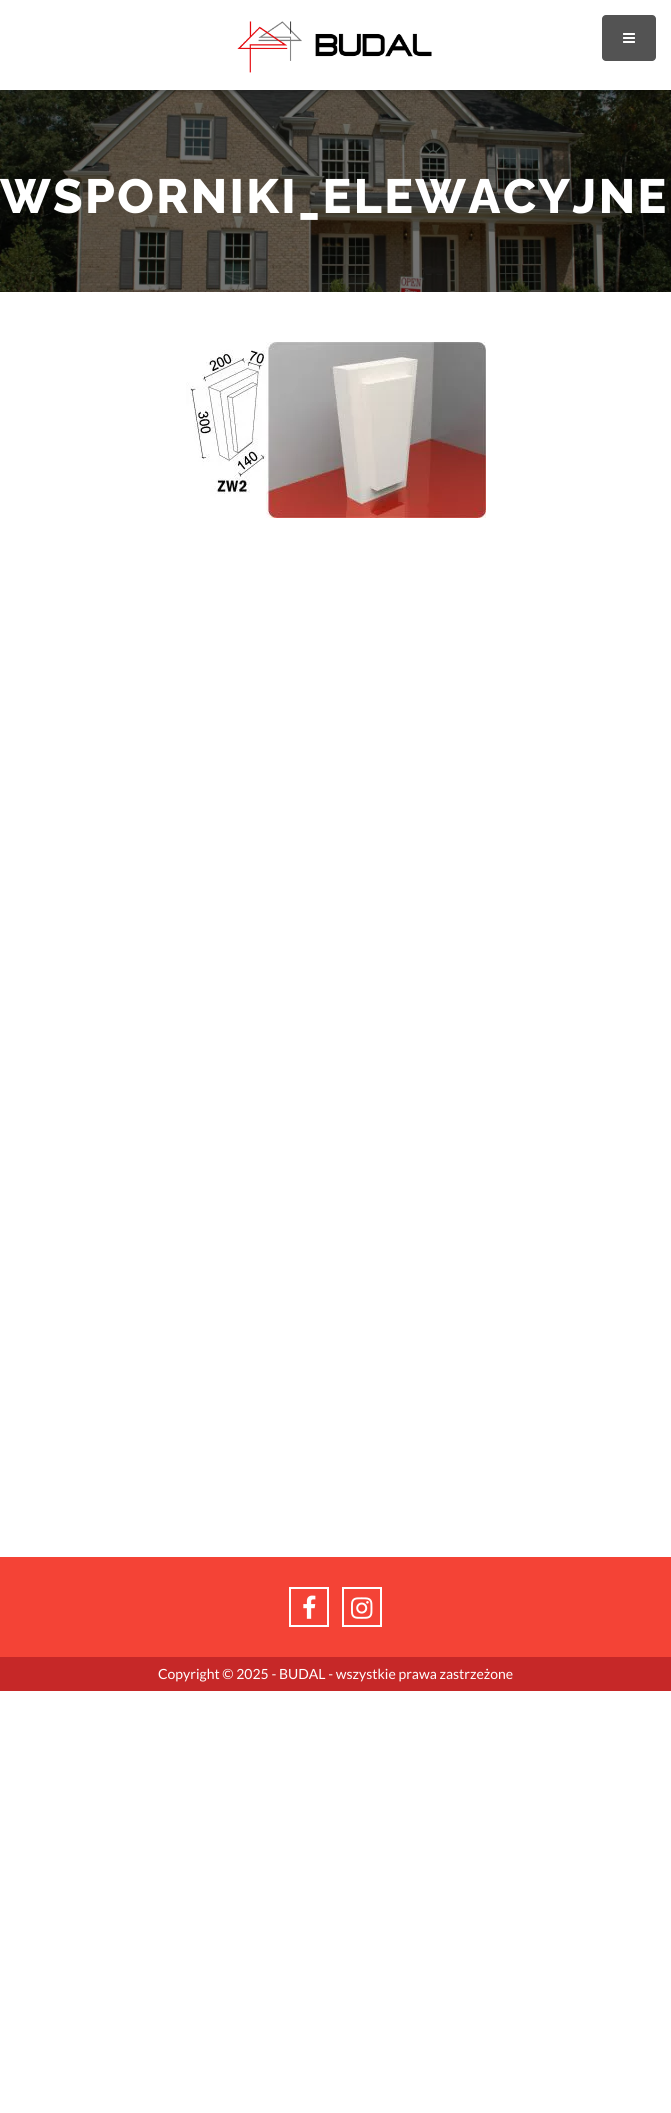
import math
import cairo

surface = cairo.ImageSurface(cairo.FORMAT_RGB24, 671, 2113)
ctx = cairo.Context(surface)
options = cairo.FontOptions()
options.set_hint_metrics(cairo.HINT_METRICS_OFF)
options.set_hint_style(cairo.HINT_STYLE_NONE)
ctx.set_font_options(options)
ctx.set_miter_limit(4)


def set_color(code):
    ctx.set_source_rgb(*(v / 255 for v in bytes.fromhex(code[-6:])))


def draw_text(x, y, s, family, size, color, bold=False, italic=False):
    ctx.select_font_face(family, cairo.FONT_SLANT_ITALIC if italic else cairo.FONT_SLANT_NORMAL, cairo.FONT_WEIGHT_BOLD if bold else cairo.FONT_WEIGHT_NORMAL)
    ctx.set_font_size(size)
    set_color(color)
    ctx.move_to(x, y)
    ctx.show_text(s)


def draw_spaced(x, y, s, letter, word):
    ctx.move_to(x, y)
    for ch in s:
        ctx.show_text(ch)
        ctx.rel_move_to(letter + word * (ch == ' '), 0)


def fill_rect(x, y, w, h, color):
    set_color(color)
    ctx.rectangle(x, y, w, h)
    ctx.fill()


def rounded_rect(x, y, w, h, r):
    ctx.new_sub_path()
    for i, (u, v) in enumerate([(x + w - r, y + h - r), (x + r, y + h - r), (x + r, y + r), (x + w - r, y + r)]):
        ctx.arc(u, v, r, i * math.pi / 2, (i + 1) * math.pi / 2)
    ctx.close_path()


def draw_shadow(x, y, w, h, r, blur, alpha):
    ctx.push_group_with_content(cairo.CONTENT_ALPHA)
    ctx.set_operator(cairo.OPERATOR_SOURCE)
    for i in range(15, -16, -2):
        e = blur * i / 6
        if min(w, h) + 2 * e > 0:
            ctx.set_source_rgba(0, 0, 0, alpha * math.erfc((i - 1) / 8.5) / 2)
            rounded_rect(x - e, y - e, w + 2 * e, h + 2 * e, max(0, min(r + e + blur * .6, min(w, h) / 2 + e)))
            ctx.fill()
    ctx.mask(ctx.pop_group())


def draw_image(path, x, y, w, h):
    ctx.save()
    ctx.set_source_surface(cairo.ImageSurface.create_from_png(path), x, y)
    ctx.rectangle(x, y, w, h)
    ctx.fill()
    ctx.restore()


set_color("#ffffff")
ctx.paint()
draw_image("assets/img3.png", 0, 90, 671, 202)
ctx.save()
ctx.rectangle(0, 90, 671, 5)
ctx.clip()
set_color("#000000")
draw_shadow(0, 2, 671, 90, 0, 2.5, 0.22)
ctx.restore()
draw_image("assets/img1.png", 237, 21, 195, 52)
set_color("#535353")
rounded_rect(602, 15, 54, 46, 4)
ctx.fill()
draw_image("assets/img2.png", 623, 33, 12, 10)
ctx.select_font_face("Raleway ExtraBold")
ctx.set_font_size(48)
set_color("#ffffff")
draw_spaced(0, 213, "WSPORNIKI_ELEWACYJNE", 2.4, 0)
draw_image("assets/img4.png", 186, 342, 300, 176)
fill_rect(0, 1557, 671, 100, "#f44336")
ctx.rectangle(290, 1588, 38, 38)
set_color("#ffffff")
ctx.stroke()
draw_image("assets/img5.png", 303, 1595, 13, 24)
ctx.rectangle(343, 1588, 38, 38)
ctx.stroke()
draw_image("assets/img6.png", 351, 1597, 22, 22)
fill_rect(0, 1657, 671, 34, "#c62828")
draw_text(158, 1679, "Copyright © 2025 - BUDAL - wszystkie prawa zastrzeżone", "Lato", 14, "#ffffff")
surface.write_to_png("output.png")
